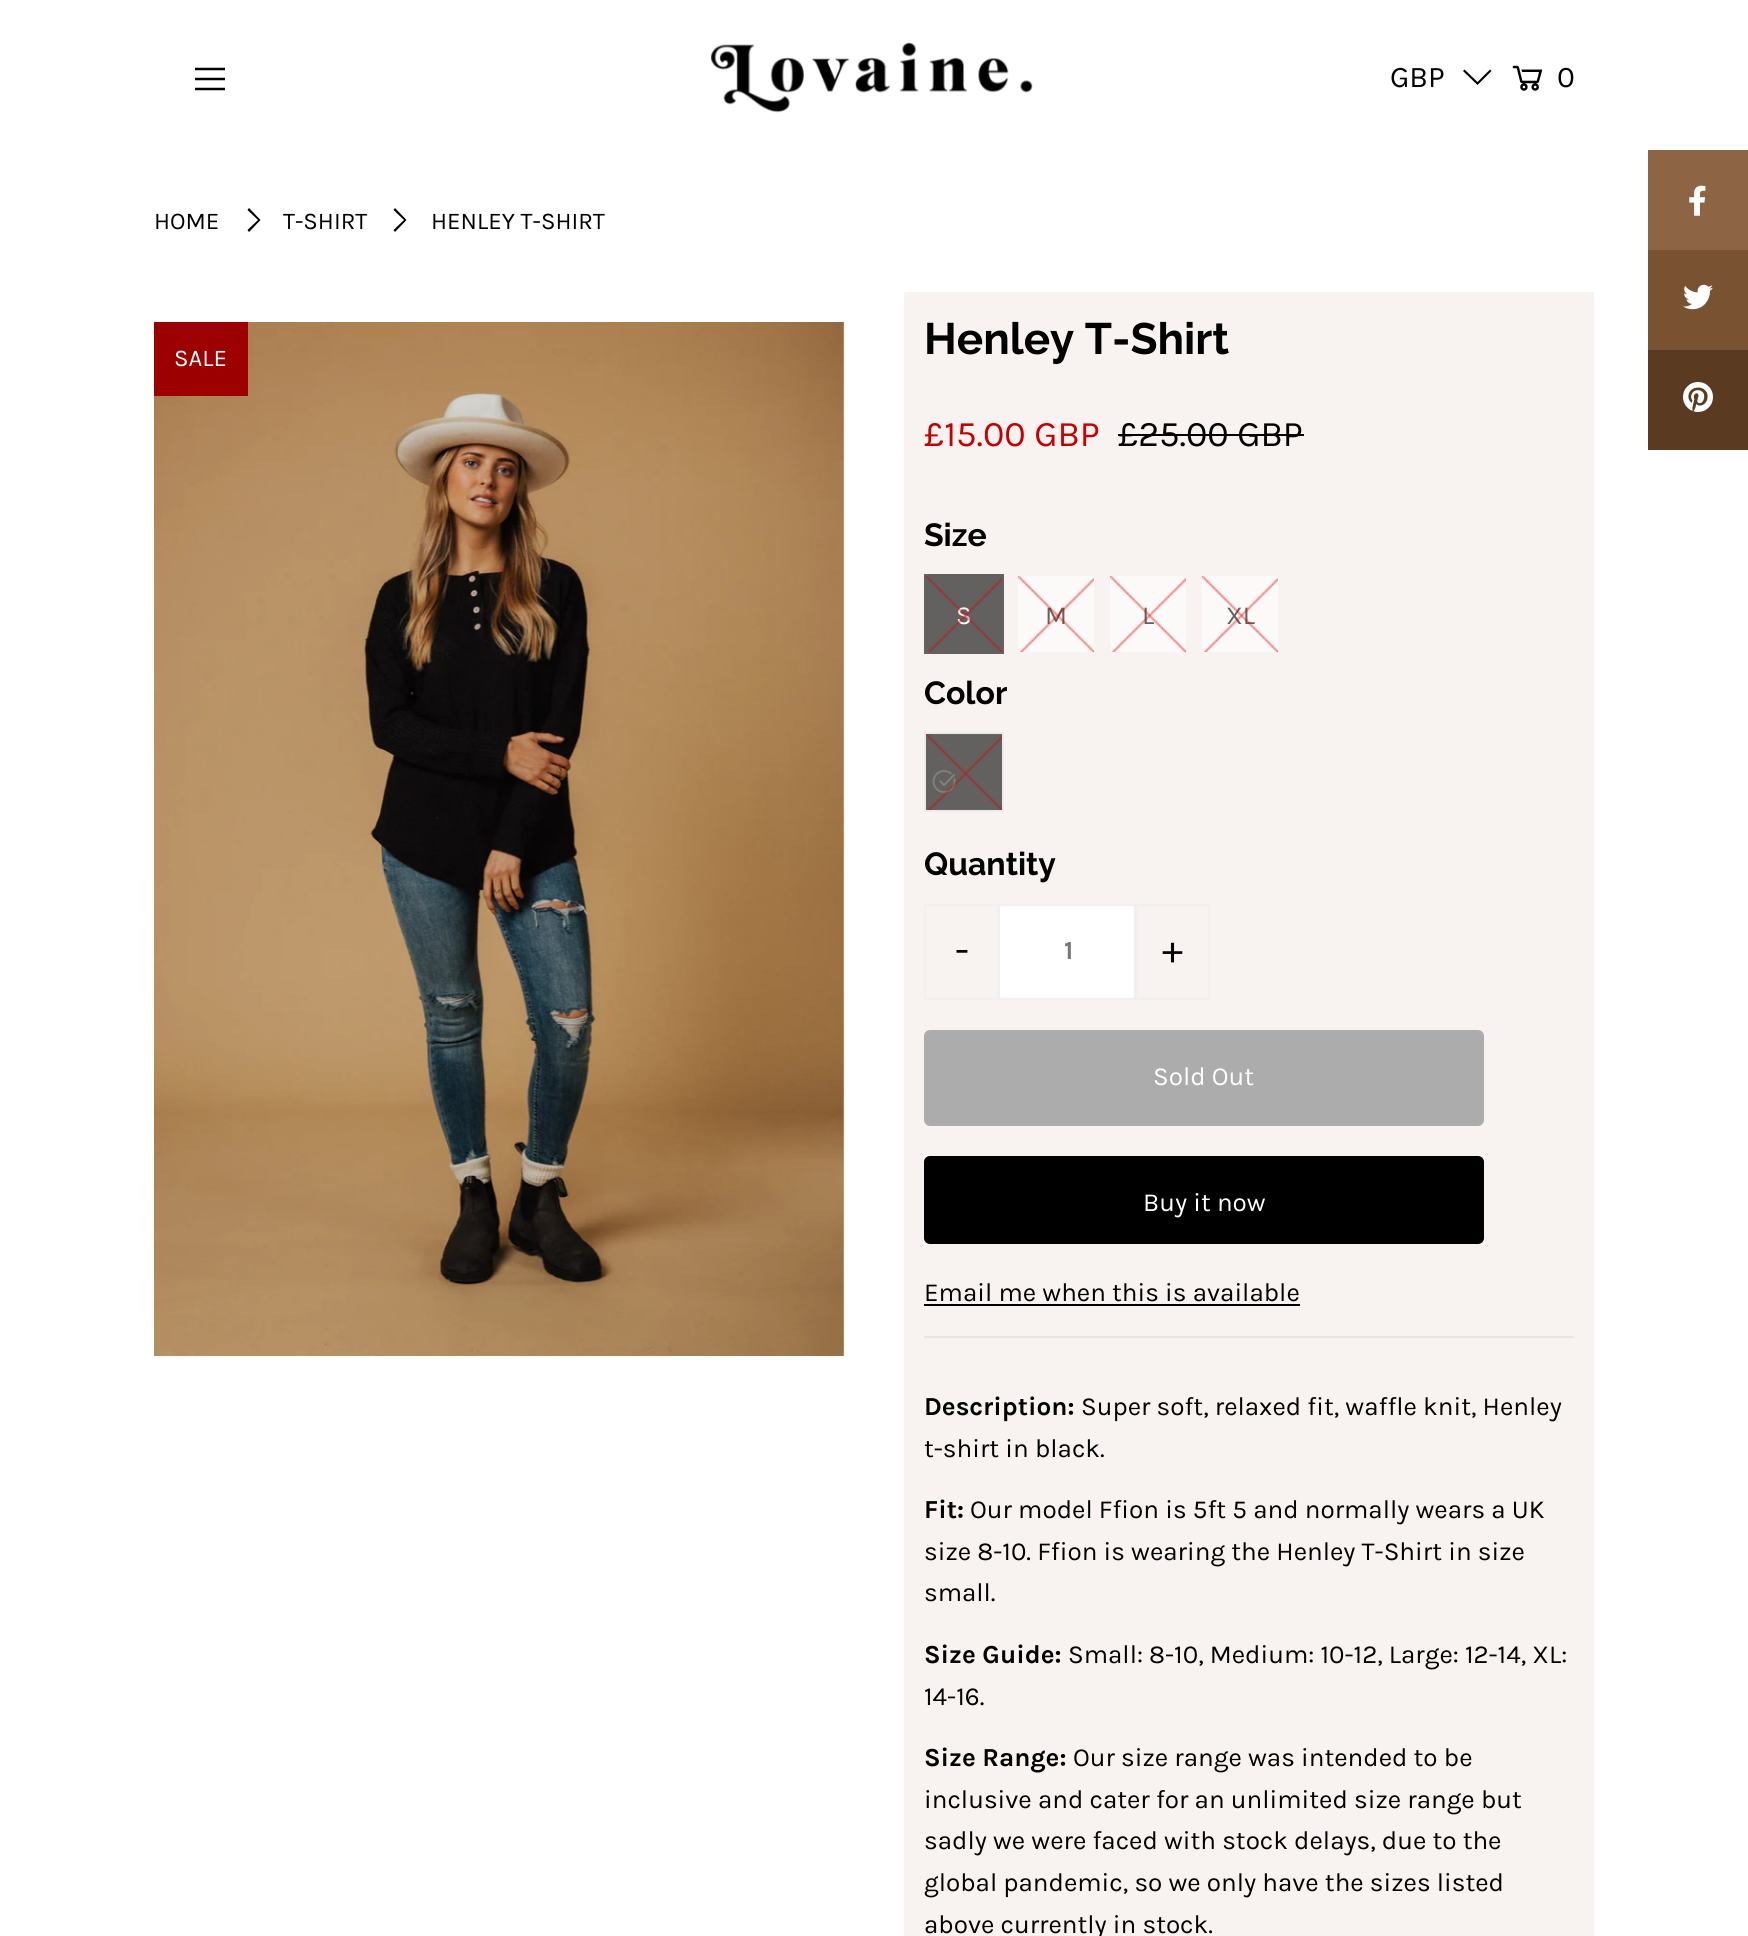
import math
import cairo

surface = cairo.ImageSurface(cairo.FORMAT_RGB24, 1748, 1936)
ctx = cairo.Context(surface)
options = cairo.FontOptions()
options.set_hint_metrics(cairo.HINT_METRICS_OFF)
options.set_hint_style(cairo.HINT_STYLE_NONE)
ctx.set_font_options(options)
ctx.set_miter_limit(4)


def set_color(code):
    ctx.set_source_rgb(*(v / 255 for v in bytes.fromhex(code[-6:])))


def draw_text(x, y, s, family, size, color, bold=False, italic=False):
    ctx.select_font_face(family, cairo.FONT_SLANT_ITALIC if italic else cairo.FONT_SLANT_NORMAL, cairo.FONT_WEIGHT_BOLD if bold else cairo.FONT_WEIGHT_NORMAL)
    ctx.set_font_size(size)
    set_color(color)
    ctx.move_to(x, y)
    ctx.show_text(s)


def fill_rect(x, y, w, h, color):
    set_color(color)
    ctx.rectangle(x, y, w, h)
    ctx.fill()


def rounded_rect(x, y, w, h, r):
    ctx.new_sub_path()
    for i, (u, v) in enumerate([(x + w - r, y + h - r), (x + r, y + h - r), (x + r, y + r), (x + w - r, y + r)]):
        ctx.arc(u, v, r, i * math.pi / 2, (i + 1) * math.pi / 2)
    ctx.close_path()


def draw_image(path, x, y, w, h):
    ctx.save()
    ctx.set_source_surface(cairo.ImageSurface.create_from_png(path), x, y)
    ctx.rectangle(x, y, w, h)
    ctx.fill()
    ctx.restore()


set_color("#ffffff")
ctx.paint()
draw_image("assets/img1.png", 195, 67, 30, 24)
draw_image("assets/img2.png", 710, 42, 323, 71)
draw_text(1390, 87, "GBP", "Karla", 30, "#000000")
ctx.new_path()
ctx.move_to(1464.5, 69.5)
ctx.line_to(1477.5, 82)
ctx.line_to(1490, 69.5)
ctx.line_to(1491.5, 71)
ctx.line_to(1477.5, 85)
ctx.line_to(1463, 71)
ctx.close_path()
ctx.fill()
draw_image("assets/img3.png", 1512, 65, 31, 26)
draw_text(1557, 87, "0", "Karla", 30, "#000000")
draw_text(154, 229, "HOME", "Karla", 24, "#000000")
ctx.new_path()
ctx.move_to(249, 208)
ctx.line_to(260.5, 220)
ctx.line_to(249, 232)
ctx.line_to(247.5, 230)
ctx.line_to(258, 220)
ctx.line_to(247.5, 210)
ctx.close_path()
ctx.fill()
draw_text(283, 229, "T-SHIRT", "Karla", 24, "#000000")
ctx.new_path()
ctx.move_to(395, 208)
ctx.line_to(406.5, 220)
ctx.line_to(395, 232)
ctx.line_to(393.5, 230)
ctx.line_to(404, 220)
ctx.line_to(393.5, 210)
ctx.close_path()
ctx.fill()
draw_text(431, 229, "HENLEY T-SHIRT", "Karla", 24, "#000000")
draw_image("assets/img4.png", 154, 322, 690, 1034)
fill_rect(154, 322, 94, 74, "#9d0000")
draw_text(174, 366, "SALE", "Karla", 24, "#ffffff")
fill_rect(904, 292, 690, 1644, "#f8f3f0")
draw_text(924, 354, "Henley T-Shirt", "Raleway", 44, "#000000", bold=True)
fill_rect(924, 1336, 650, 2, "#e5e5e5")
draw_text(924, 446, "£15.00 GBP", "Karla", 36, "#c50000")
draw_text(1118, 446, "£25.00 GBP", "Karla", 36, "#000000")
fill_rect(1118, 434, 186, 2, "#000000")
draw_text(924, 546, "Size", "Raleway", 32, "#000000", bold=True)
fill_rect(924, 574, 80, 80, "#636160")
draw_text(956, 624, "S", "Karla", 26, "#fcfaf9")
draw_image("assets/img5.png", 926, 576, 76, 76)
ctx.rectangle(1017, 575, 78, 78)
ctx.fill_preserve()
set_color("#f6f4f3")
ctx.stroke()
draw_text(1045, 624, "M", "Karla", 26, "#636160")
draw_image("assets/img6.png", 1018, 576, 76, 76)
set_color("#fcfaf9")
ctx.rectangle(1109, 575, 78, 78)
ctx.fill_preserve()
set_color("#f6f4f3")
ctx.stroke()
draw_text(1142, 624, "L", "Karla", 26, "#636160")
draw_image("assets/img7.png", 1110, 576, 76, 76)
set_color("#fcfaf9")
ctx.rectangle(1201, 575, 78, 78)
ctx.fill_preserve()
set_color("#f6f4f3")
ctx.stroke()
draw_text(1226, 624, "XL", "Karla", 26, "#636160")
draw_image("assets/img8.png", 1202, 576, 76, 76)
draw_text(924, 704, "Color", "Raleway", 32, "#000000", bold=True)
set_color("#636160")
ctx.rectangle(925, 733, 78, 78)
ctx.fill_preserve()
set_color("#edebe9")
ctx.stroke()
draw_image("assets/img10.png", 932, 770, 24, 23)
draw_image("assets/img9.png", 926, 734, 76, 76)
draw_text(924, 875, "Quantity", "Raleway", 32, "#000000", bold=True)
ctx.rectangle(925, 905, 74, 94)
set_color("#f0f0f0")
ctx.stroke()
draw_text(955, 963, "-", "Karla", 40, "#000000")
set_color("#ffffff")
rounded_rect(999, 905, 138, 94, 3)
ctx.fill_preserve()
set_color("#f0f0f0")
ctx.stroke()
draw_text(1064, 959, "1", "Karla", 26, "#777777", bold=True)
ctx.rectangle(1135, 905, 74, 94)
set_color("#f0f0f0")
ctx.stroke()
draw_text(1162, 963, "+", "Karla", 40, "#000000")
set_color("#acacac")
rounded_rect(924, 1030, 560, 96, 6)
ctx.fill()
draw_text(1153, 1085, "Sold Out", "Karla", 26, "#ffffff")
set_color("#000000")
rounded_rect(924, 1156, 560, 88, 6)
ctx.fill()
draw_text(1143, 1211, "Buy it now", "Karla", 26, "#ffffff")
draw_text(924, 1301, "Email me when this is available", "Karla", 26, "#000000")
fill_rect(924, 1304, 376, 2, "#000000")
draw_text(924, 1415, "Description:", "Karla", 26, "#000000", bold=True)
draw_text(1081, 1415, "Super soft, relaxed fit, waffle knit, Henley", "Karla", 26, "#000000")
draw_text(924, 1457, "t-shirt in black.", "Karla", 26, "#000000")
draw_text(924, 1518, "Fit:", "Karla", 26, "#000000", bold=True)
draw_text(970, 1518, "Our model Ffion is 5ft 5 and normally wears a UK", "Karla", 26, "#000000")
draw_text(924, 1560, "size 8-10. Ffion is wearing the Henley T-Shirt in size", "Karla", 26, "#000000")
draw_text(924, 1601, "small.", "Karla", 26, "#000000")
draw_text(924, 1663, "Size Guide:", "Karla", 26, "#000000", bold=True)
draw_text(1068, 1663, "Small: 8-10, Medium: 10-12, Large: 12-14, XL:", "Karla", 26, "#000000")
draw_text(924, 1705, "14-16.", "Karla", 26, "#000000")
draw_text(924, 1766, "Size Range:", "Karla", 26, "#000000", bold=True)
draw_text(1073, 1766, "Our size range was intended to be", "Karla", 26, "#000000")
draw_text(924, 1808, "inclusive and cater for an unlimited size range but", "Karla", 26, "#000000")
draw_text(924, 1849, "sadly we were faced with stock delays, due to the", "Karla", 26, "#000000")
draw_text(924, 1891, "global pandemic, so we only have the sizes listed", "Karla", 26, "#000000")
draw_text(924, 1933, "above currently in stock.", "Karla", 26, "#000000")
fill_rect(1648, 150, 100, 100, "#8d6544")
draw_image("assets/img11.png", 1689, 185, 17, 31)
fill_rect(1648, 250, 100, 100, "#795232")
draw_image("assets/img12.png", 1683, 284, 30, 26)
fill_rect(1648, 350, 100, 100, "#5a3b21")
draw_image("assets/img13.png", 1683, 382, 30, 30)
surface.write_to_png("output.png")
